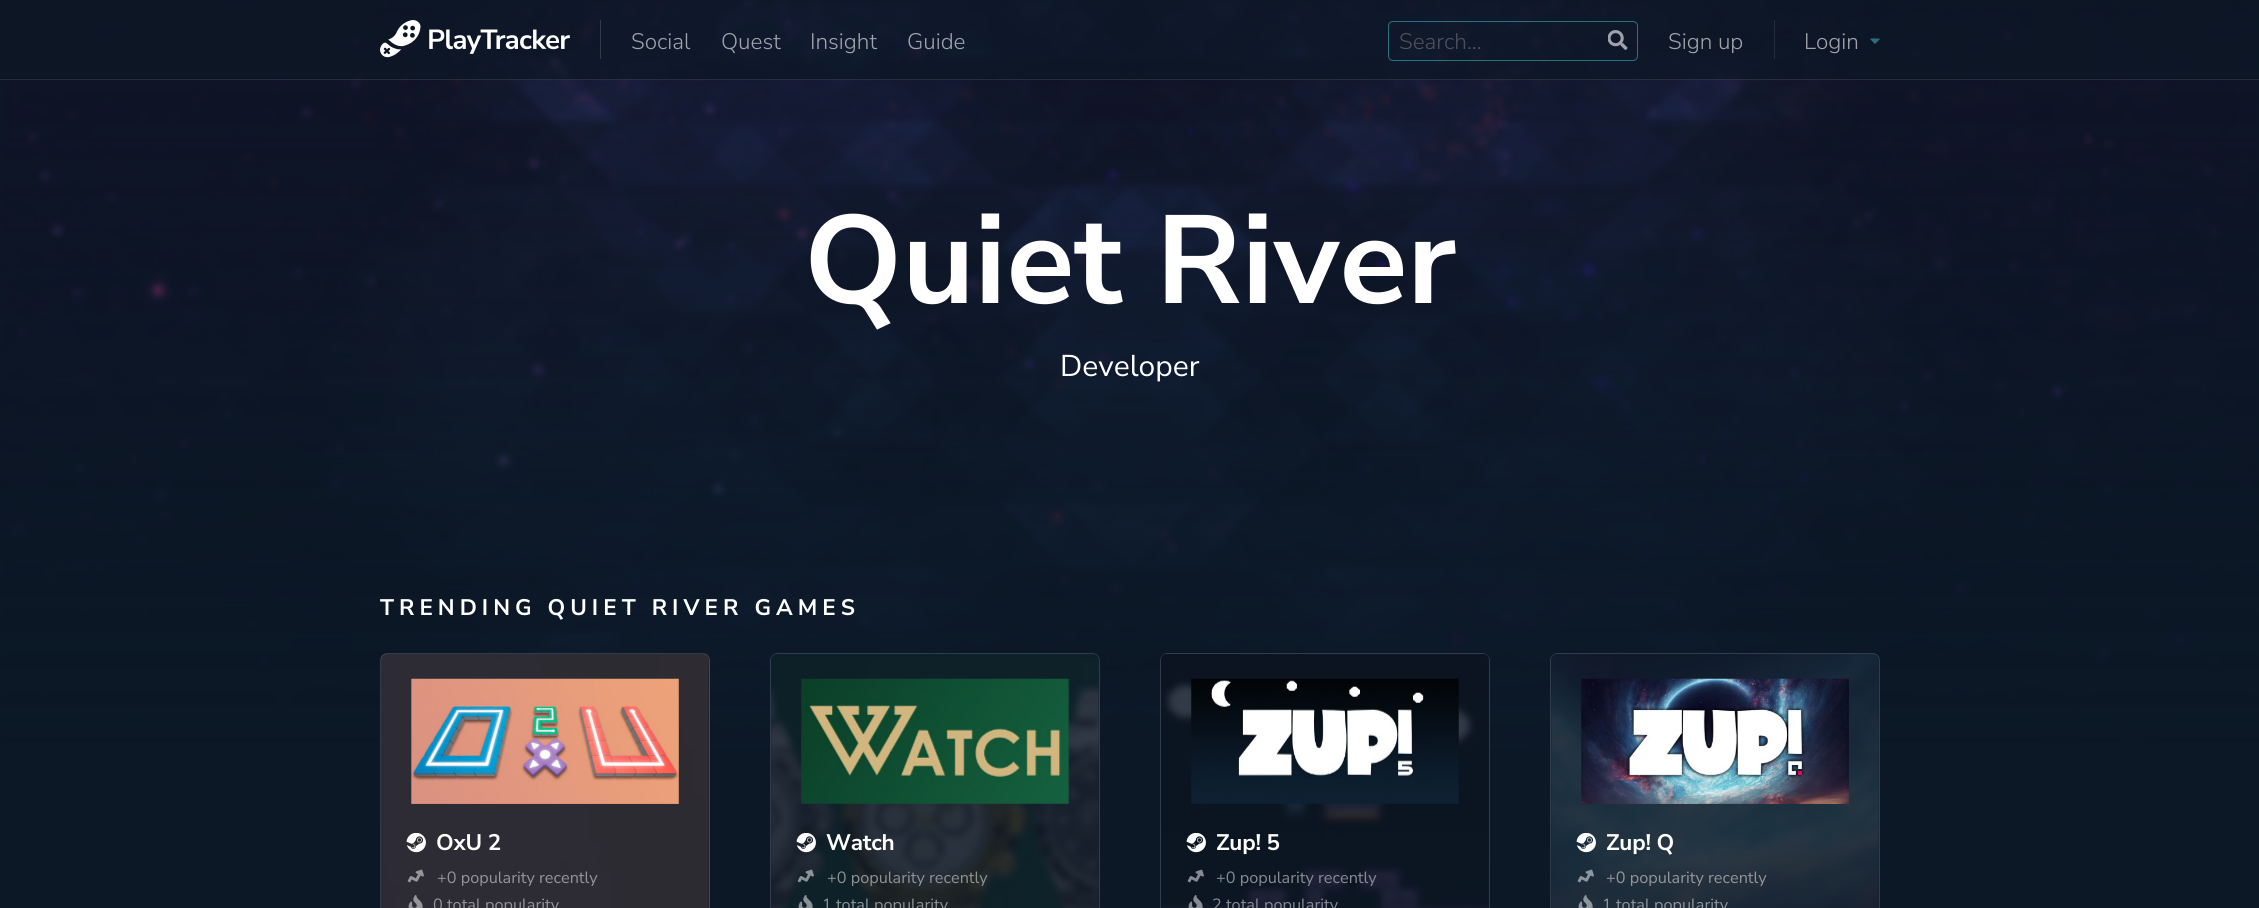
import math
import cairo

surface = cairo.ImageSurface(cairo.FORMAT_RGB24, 2259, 908)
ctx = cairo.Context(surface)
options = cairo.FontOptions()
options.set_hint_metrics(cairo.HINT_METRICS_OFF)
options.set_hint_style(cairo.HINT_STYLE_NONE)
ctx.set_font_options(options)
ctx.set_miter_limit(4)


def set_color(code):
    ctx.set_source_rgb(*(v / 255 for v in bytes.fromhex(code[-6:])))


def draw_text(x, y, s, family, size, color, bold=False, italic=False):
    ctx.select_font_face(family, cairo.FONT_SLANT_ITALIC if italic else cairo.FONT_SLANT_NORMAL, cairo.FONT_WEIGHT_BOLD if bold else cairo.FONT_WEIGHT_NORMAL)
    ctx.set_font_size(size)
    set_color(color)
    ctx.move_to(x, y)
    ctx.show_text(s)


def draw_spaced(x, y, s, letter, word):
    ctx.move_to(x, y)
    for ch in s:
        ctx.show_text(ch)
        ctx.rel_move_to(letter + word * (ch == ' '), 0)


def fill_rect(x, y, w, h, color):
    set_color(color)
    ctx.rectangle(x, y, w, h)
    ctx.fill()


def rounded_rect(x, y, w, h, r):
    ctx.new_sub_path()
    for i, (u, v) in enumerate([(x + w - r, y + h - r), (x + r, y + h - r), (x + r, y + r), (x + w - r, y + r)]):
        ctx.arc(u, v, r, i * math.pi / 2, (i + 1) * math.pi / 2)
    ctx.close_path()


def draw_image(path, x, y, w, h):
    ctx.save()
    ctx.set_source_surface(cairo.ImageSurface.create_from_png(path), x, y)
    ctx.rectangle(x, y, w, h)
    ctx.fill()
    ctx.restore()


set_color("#0c1826")
ctx.paint()
draw_image("assets/img4.png", 0, 0, 2259, 755)
gradient = cairo.LinearGradient(1130, 760, 1130, -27)
gradient.add_color_stop_rgba(0, 0.047, 0.094, 0.149, 1)
gradient.add_color_stop_rgba(1, 0.047, 0.094, 0.149, 0.1)
ctx.set_source(gradient)
ctx.rectangle(0, 0, 2259, 755)
ctx.fill()
ctx.set_source_rgba(0.047, 0.094, 0.149, 0.7)
ctx.rectangle(0, 0, 2259, 80)
ctx.fill()
ctx.set_source_rgba(1, 1, 1, 0.1)
ctx.rectangle(0, 79, 2259, 1)
ctx.fill()
draw_image("assets/img1.png", 380, 20, 190, 38)
fill_rect(600, 20, 1, 39, "#333b4a")
draw_text(631, 49, "Social", "Nunito Sans Light", 22.5, "#9fa3aa")
draw_text(721, 49, "Quest", "Nunito Sans Light", 22.5, "#9fa3aa")
draw_text(810, 49, "Insight", "Nunito Sans Light", 22.5, "#9fa3aa")
draw_text(907, 49, "Guide", "Nunito Sans Light", 22.5, "#9fa3aa")
rounded_rect(1388.5, 21.5, 249, 39, 4.5)
ctx.set_source_rgba(0.255, 0.663, 0.733, 0.6)
ctx.set_line_width(1)
ctx.stroke()
draw_text(1399, 49, "Search...", "Nunito Sans Light", 22.5, "#4d5058")
draw_image("assets/img2.png", 1608, 30, 20, 20)
draw_text(1668, 49, "Sign up", "Nunito Sans Light", 22.5, "#9fa3aa")
fill_rect(1774, 20, 1, 39, "#242c3b")
draw_text(1804, 49, "Login", "Nunito Sans Light", 22.5, "#9fa3aa")
draw_image("assets/img3.png", 1870, 38, 10, 6)
draw_text(804, 303, "Quiet River", "Nunito Sans", 125, "#ffffff", bold=True)
draw_text(1060, 376, "Developer", "Nunito Sans", 30, "#ffffff")
ctx.select_font_face("Nunito Sans", cairo.FONT_SLANT_NORMAL, cairo.FONT_WEIGHT_BOLD)
ctx.set_font_size(22.5)
draw_spaced(380, 615, "TRENDING QUIET RIVER GAMES", 5, 0)
set_color("#1b2838")
rounded_rect(380, 653, 330, 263, 8)
ctx.fill()
rounded_rect(380.5, 653.5, 329, 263, 7.5)
ctx.set_source_rgba(1, 1, 1, 0.1)
ctx.stroke()
draw_image("assets/img5.png", 381, 654, 329, 254)
ctx.set_source_rgba(0.051, 0.094, 0.149, 0.85)
rounded_rect(381, 654, 328, 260, 6)
ctx.fill()
draw_image("assets/img6.png", 411, 678, 268, 126)
draw_image("assets/img7.png", 406, 833, 20, 20)
set_color("#ffffff")
draw_spaced(436, 850, "OxU 2", -0.25, 0)
draw_image("assets/img8.png", 407, 869, 17, 14)
draw_text(437, 883, "+0 popularity recently", "Nunito Sans", 16.25, "#969599")
draw_image("assets/img9.png", 408, 895, 15, 13)
draw_text(433, 910, "0 total popularity", "Nunito Sans", 16.25, "#969599")
set_color("#1b2838")
rounded_rect(770, 653, 330, 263, 8)
ctx.fill()
rounded_rect(770.5, 653.5, 329, 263, 7.5)
ctx.set_source_rgba(1, 1, 1, 0.1)
ctx.stroke()
draw_image("assets/img10.png", 771, 654, 328, 254)
ctx.set_source_rgba(0.051, 0.094, 0.149, 0.85)
rounded_rect(771, 654, 328, 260, 6)
ctx.fill()
draw_image("assets/img11.png", 801, 678, 269, 126)
draw_image("assets/img12.png", 796, 833, 20, 20)
ctx.select_font_face("Nunito Sans", cairo.FONT_SLANT_NORMAL, cairo.FONT_WEIGHT_BOLD)
ctx.set_font_size(22.5)
set_color("#ffffff")
draw_spaced(826, 850, "Watch", -0.25, 0)
draw_image("assets/img13.png", 797, 869, 17, 14)
draw_text(827, 883, "+0 popularity recently", "Nunito Sans", 16.25, "#8f9396")
draw_image("assets/img14.png", 798, 895, 15, 13)
draw_text(822, 910, "1 total popularity", "Nunito Sans", 16.25, "#8f9396")
set_color("#1b2838")
rounded_rect(1160, 653, 330, 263, 8)
ctx.fill()
rounded_rect(1160.5, 653.5, 329, 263, 7.5)
ctx.set_source_rgba(1, 1, 1, 0.1)
ctx.stroke()
draw_image("assets/img15.png", 1161, 654, 328, 254)
ctx.set_source_rgba(0.051, 0.094, 0.149, 0.85)
rounded_rect(1161, 654, 328, 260, 6)
ctx.fill()
draw_image("assets/img16.png", 1191, 678, 268, 126)
draw_image("assets/img17.png", 1186, 833, 20, 20)
ctx.select_font_face("Nunito Sans", cairo.FONT_SLANT_NORMAL, cairo.FONT_WEIGHT_BOLD)
ctx.set_font_size(22.5)
set_color("#ffffff")
draw_spaced(1216, 850, "Zup! 5", -0.25, 0)
draw_image("assets/img18.png", 1187, 869, 17, 14)
draw_text(1216, 883, "+0 popularity recently", "Nunito Sans", 16.25, "#888c94")
draw_image("assets/img19.png", 1188, 895, 15, 13)
draw_text(1212, 910, "2 total popularity", "Nunito Sans", 16.25, "#888c94")
set_color("#1b2838")
rounded_rect(1550, 653, 330, 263, 8)
ctx.fill()
rounded_rect(1550.5, 653.5, 329, 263, 7.5)
ctx.set_source_rgba(1, 1, 1, 0.1)
ctx.stroke()
draw_image("assets/img20.png", 1551, 654, 328, 254)
ctx.set_source_rgba(0.051, 0.094, 0.149, 0.85)
rounded_rect(1551, 654, 328, 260, 6)
ctx.fill()
draw_image("assets/img21.png", 1581, 678, 268, 126)
draw_image("assets/img22.png", 1576, 833, 20, 20)
ctx.select_font_face("Nunito Sans", cairo.FONT_SLANT_NORMAL, cairo.FONT_WEIGHT_BOLD)
ctx.set_font_size(22.5)
set_color("#ffffff")
draw_spaced(1606, 850, "Zup! Q", -0.25, 0)
draw_image("assets/img23.png", 1577, 869, 17, 14)
draw_text(1606, 883, "+0 popularity recently", "Nunito Sans", 16.25, "#969599")
draw_image("assets/img24.png", 1578, 895, 15, 13)
draw_text(1602, 910, "1 total popularity", "Nunito Sans", 16.25, "#8f959c")
surface.write_to_png("output.png")
